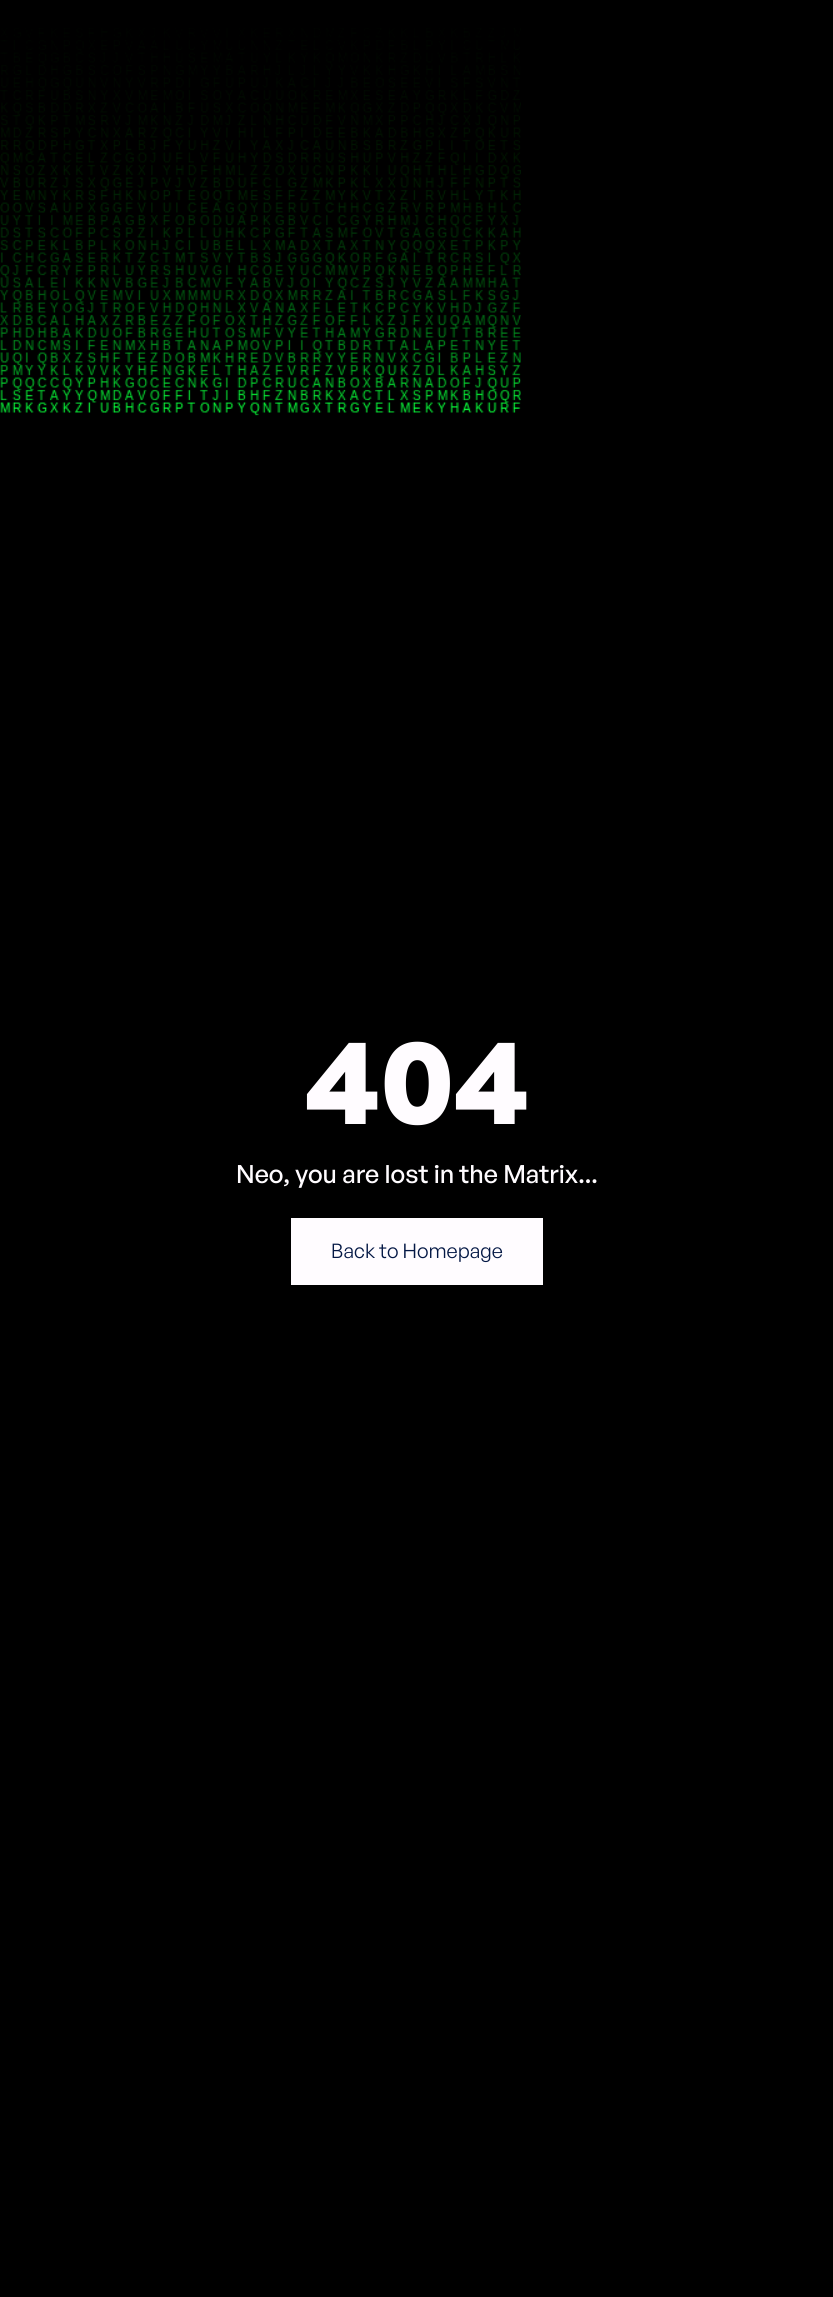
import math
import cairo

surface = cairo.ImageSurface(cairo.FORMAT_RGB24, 833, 2297)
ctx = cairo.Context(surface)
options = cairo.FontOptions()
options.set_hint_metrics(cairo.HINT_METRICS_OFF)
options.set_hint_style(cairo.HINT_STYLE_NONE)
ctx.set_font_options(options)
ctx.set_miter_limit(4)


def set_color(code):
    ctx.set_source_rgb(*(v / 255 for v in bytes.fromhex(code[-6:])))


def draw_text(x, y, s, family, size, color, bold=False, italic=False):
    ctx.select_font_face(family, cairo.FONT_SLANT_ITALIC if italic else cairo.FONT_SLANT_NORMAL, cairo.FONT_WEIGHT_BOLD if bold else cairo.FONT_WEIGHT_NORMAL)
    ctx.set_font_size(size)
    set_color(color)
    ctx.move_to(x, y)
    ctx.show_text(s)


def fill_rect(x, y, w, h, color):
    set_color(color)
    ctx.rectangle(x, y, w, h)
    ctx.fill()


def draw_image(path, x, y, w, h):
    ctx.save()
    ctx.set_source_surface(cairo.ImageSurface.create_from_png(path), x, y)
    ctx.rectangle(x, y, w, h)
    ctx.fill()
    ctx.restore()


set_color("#000000")
ctx.paint()
draw_image("assets/img1.png", 0, 28, 521, 388)
draw_text(306, 1124, "404", "General Sans", 120, "#fffcff", bold=True)
draw_text(236, 1183, "Neo, you are lost in the Matrix...", "General Sans Medium", 25, "#fffcff")
fill_rect(291, 1218, 252, 67, "#fffcff")
draw_text(331, 1258, "Back to Homepage", "General Sans", 20, "#041845")
surface.write_to_png("output.png")
